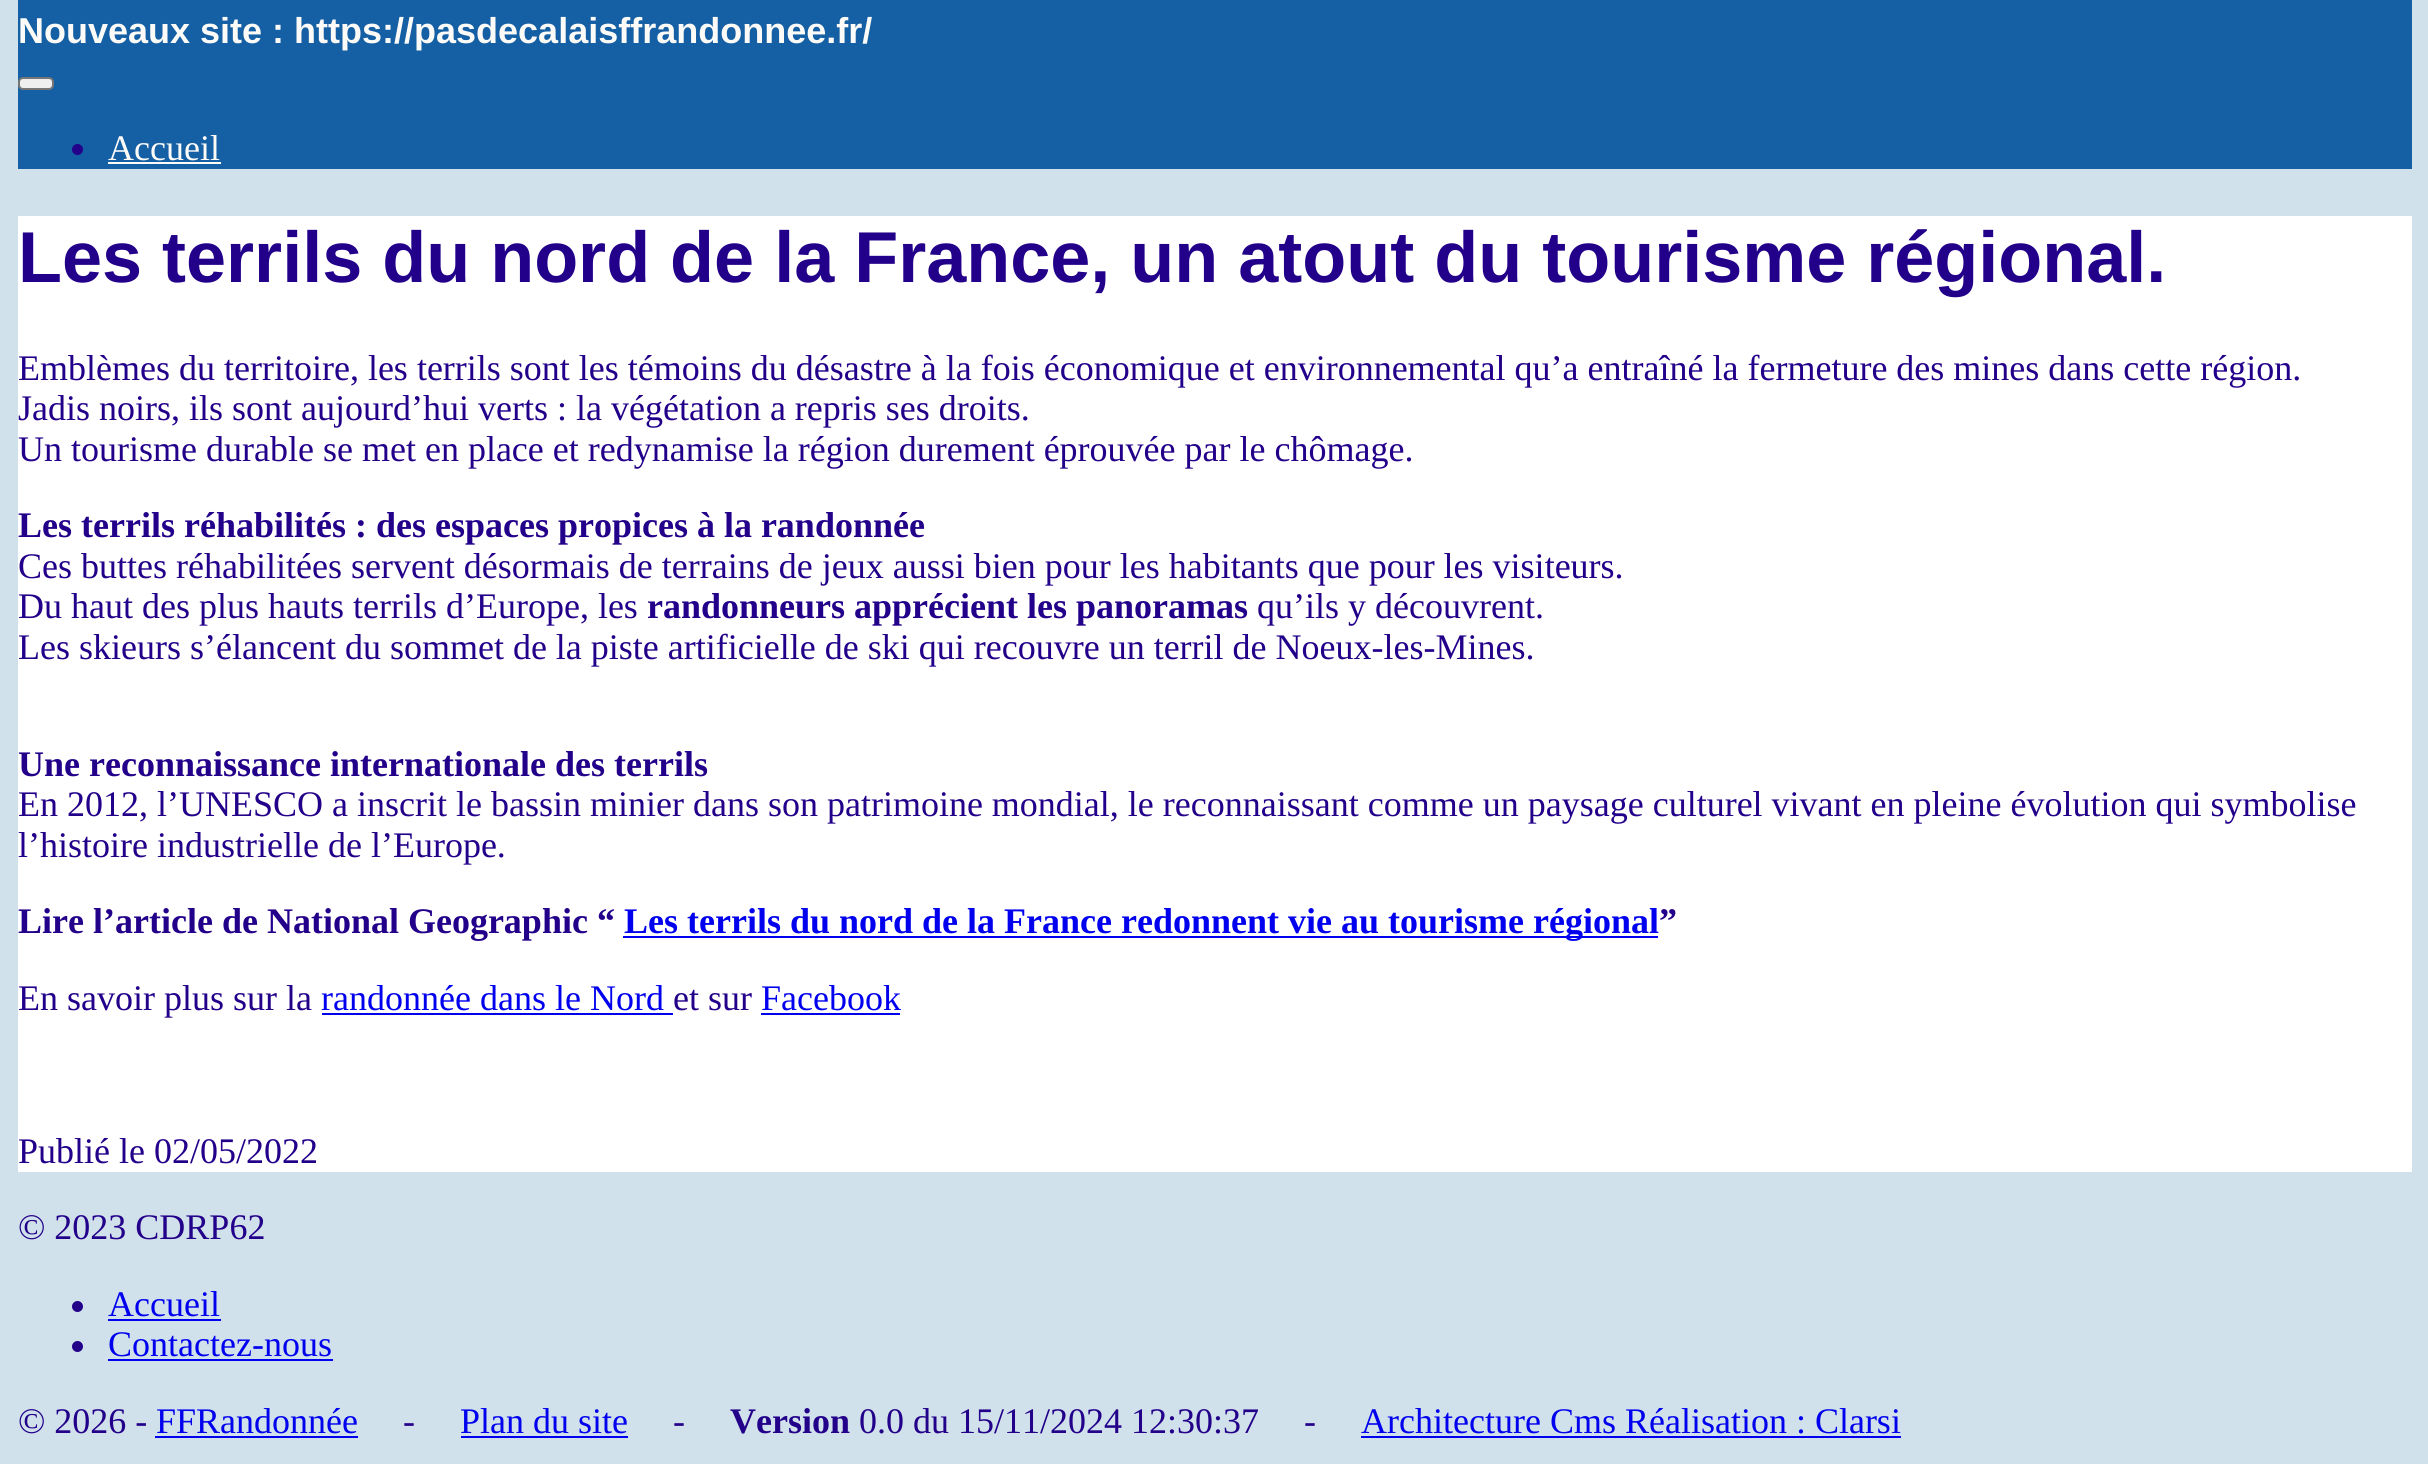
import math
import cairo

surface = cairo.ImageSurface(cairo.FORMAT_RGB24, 2428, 1464)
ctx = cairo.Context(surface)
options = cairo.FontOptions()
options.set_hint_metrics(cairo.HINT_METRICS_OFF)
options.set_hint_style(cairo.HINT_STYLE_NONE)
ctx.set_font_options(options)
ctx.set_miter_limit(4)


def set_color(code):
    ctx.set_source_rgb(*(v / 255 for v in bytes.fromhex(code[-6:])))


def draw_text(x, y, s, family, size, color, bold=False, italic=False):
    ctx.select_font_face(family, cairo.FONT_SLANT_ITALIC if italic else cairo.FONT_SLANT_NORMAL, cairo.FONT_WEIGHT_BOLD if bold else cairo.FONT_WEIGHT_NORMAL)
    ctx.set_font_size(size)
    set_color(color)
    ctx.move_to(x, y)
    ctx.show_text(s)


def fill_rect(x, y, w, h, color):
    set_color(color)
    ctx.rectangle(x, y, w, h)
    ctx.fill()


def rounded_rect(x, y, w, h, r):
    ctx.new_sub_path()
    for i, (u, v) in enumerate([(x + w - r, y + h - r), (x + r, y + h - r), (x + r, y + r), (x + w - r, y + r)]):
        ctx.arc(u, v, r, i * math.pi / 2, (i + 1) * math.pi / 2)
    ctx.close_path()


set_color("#d1e1eb")
ctx.paint()
fill_rect(18, 0, 2394, 169, "#155fa4")
draw_text(18, 43, "Nouveaux site : https://pasdecalaisffrandonnee.fr/", "Liberation Sans", 36, "#fcfbf8", bold=True)
set_color("#efefef")
rounded_rect(19, 78, 34, 11, 4)
ctx.fill_preserve()
set_color("#767676")
ctx.stroke()
set_color("#22008a")
ctx.arc(77.5, 149.5, 5.5, 0, 2 * math.pi)
ctx.fill()
draw_text(108, 160, "Accueil", "Liberation Serif", 36, "#fcfbf8")
fill_rect(108, 162, 113, 2, "#fcfbf8")
fill_rect(18, 216, 2394, 956, "#ffffff")
draw_text(18, 282, "Les terrils du nord de la France, un atout du tourisme régional.", "Liberation Sans", 72, "#22008a", bold=True)
draw_text(18, 380, "Emblèmes du territoire, les terrils sont les témoins du désastre à la fois économique et environnemental qu’a entraîné la fermeture des mines dans cette région.", "Liberation Serif", 36, "#22008a")
draw_text(18, 420, "Jadis noirs, ils sont aujourd’hui verts : la végétation a repris ses droits.", "Liberation Serif", 36, "#22008a")
draw_text(18, 461, "Un tourisme durable se met en place et redynamise la région durement éprouvée par le chômage.", "Liberation Serif", 36, "#22008a")
draw_text(18, 537, "Les terrils réhabilités : des espaces propices à la randonnée", "Liberation Serif", 36, "#22008a", bold=True)
draw_text(18, 578, "Ces buttes réhabilitées servent désormais de terrains de jeux aussi bien pour les habitants que pour les visiteurs.", "Liberation Serif", 36, "#22008a")
draw_text(18, 618, "Du haut des plus hauts terrils d’Europe, les", "Liberation Serif", 36, "#22008a")
draw_text(647, 618, "randonneurs apprécient les panoramas", "Liberation Serif", 36, "#22008a", bold=True)
draw_text(1257, 618, "qu’ils y découvrent.", "Liberation Serif", 36, "#22008a")
draw_text(18, 659, "Les skieurs s’élancent du sommet de la piste artificielle de ski qui recouvre un terril de Noeux-les-Mines.", "Liberation Serif", 36, "#22008a")
draw_text(18, 776, "Une reconnaissance internationale des terrils", "Liberation Serif", 36, "#22008a", bold=True)
draw_text(18, 816, "En 2012, l’UNESCO a inscrit le bassin minier dans son patrimoine mondial, le reconnaissant comme un paysage culturel vivant en pleine évolution qui symbolise", "Liberation Serif", 36, "#22008a")
draw_text(18, 857, "l’histoire industrielle de l’Europe.", "Liberation Serif", 36, "#22008a")
draw_text(18, 933, "Lire l’article de National Geographic “", "Liberation Serif", 36, "#22008a", bold=True)
fill_rect(623, 936, 1035, 2, "#0000ee")
draw_text(624, 933, "Les terrils du nord de la France redonnent vie au tourisme régional", "Liberation Serif", 36, "#0000ee", bold=True)
draw_text(1659, 933, "”", "Liberation Serif", 36, "#22008a", bold=True)
draw_text(18, 1010, "En savoir plus sur la", "Liberation Serif", 36, "#22008a")
draw_text(321, 1010, "randonnée dans le Nord", "Liberation Serif", 36, "#0000ee")
fill_rect(322, 1013, 351, 2, "#0000ee")
draw_text(673, 1010, "et sur", "Liberation Serif", 36, "#22008a")
draw_text(761, 1010, "Facebook", "Liberation Serif", 36, "#0000ee")
fill_rect(761, 1013, 139, 2, "#0000ee")
draw_text(18, 1163, "Publié le 02/05/2022", "Liberation Serif", 36, "#22008a")
draw_text(18, 1239, "© 2023 CDRP62", "Liberation Serif", 36, "#22008a")
ctx.new_path()
ctx.arc(77.5, 1306.5, 5.5, 0, 2 * math.pi)
ctx.fill()
draw_text(108, 1316, "Accueil", "Liberation Serif", 36, "#0000ee")
fill_rect(108, 1319, 113, 2, "#0000ee")
set_color("#22008a")
ctx.new_path()
ctx.arc(77.5, 1346.5, 5.5, 0, 2 * math.pi)
ctx.fill()
draw_text(108, 1356, "Contactez-nous", "Liberation Serif", 36, "#0000ee")
fill_rect(108, 1359, 225, 2, "#0000ee")
draw_text(18, 1433, "© 2026 -", "Liberation Serif", 36, "#22008a")
draw_text(156, 1433, "FFRandonnée", "Liberation Serif", 36, "#0000ee")
fill_rect(155, 1436, 203, 2, "#0000ee")
draw_text(403, 1433, "-", "Liberation Serif", 36, "#22008a")
draw_text(460, 1433, "Plan du site", "Liberation Serif", 36, "#0000ee")
fill_rect(461, 1436, 167, 2, "#0000ee")
draw_text(673, 1433, "-", "Liberation Serif", 36, "#22008a")
draw_text(730, 1433, "Version", "Liberation Serif", 36, "#22008a", bold=True)
draw_text(859, 1433, "0.0 du 15/11/2024 12:30:37", "Liberation Serif", 36, "#22008a")
draw_text(1304, 1433, "-", "Liberation Serif", 36, "#22008a")
draw_text(1361, 1433, "Architecture Cms Réalisation : Clarsi", "Liberation Serif", 36, "#0000ee")
fill_rect(1361, 1436, 540, 2, "#0000ee")
surface.write_to_png("output.png")
